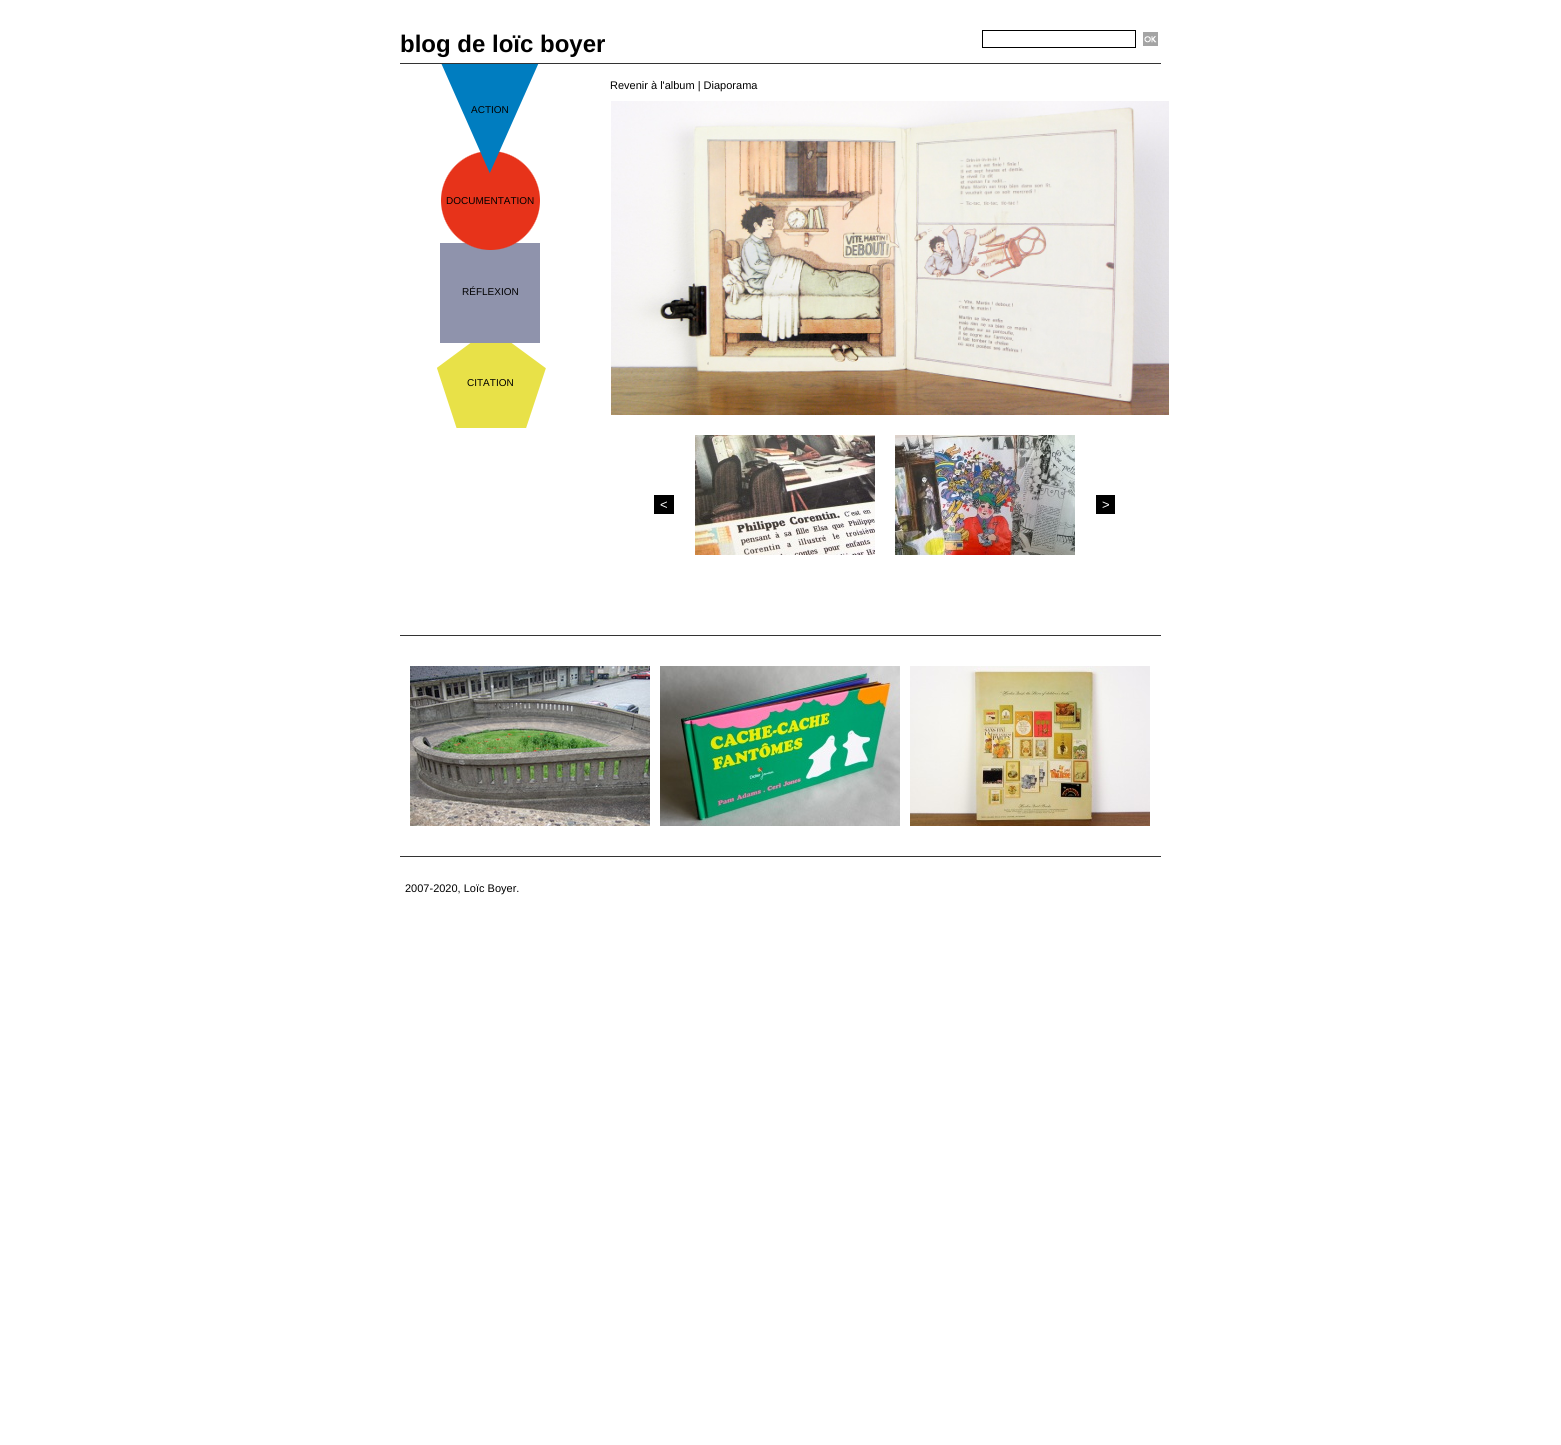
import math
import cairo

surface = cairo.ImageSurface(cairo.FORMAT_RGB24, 1561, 1445)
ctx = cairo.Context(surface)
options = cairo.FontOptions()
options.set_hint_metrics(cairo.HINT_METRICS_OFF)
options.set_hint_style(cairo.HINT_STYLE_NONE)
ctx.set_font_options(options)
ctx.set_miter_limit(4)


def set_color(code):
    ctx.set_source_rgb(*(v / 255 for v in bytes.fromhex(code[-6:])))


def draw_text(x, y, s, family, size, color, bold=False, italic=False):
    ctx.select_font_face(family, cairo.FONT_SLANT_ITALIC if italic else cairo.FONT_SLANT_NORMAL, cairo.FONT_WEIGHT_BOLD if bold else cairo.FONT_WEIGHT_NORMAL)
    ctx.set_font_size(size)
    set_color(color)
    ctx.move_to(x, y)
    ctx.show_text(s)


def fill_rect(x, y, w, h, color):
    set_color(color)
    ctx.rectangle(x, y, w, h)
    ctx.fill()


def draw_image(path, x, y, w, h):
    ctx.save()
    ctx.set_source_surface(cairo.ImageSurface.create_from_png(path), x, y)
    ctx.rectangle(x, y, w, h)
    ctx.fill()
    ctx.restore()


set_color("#ffffff")
ctx.paint()
draw_text(400, 52, "blog de loïc boyer", "Liberation Sans", 24, "#000000", bold=True)
ctx.rectangle(982.5, 30.5, 153, 17)
ctx.set_line_width(1)
ctx.stroke()
draw_image("assets/img1.png", 1143, 32, 15, 14)
fill_rect(400, 63, 761, 1, "#333333")
draw_image("assets/img2.png", 437, 64, 109, 364)
draw_text(471, 113, "ACTION", "Liberation Sans", 10, "#000000")
draw_text(446, 204, "DOCUMENTATION", "Liberation Sans", 10, "#000000")
draw_text(462, 295, "RÉFLEXION", "Liberation Sans", 10, "#000000")
draw_text(467, 386, "CITATION", "Liberation Sans", 10, "#000000")
draw_text(610, 89, "Revenir à l'album | Diaporama", "Liberation Sans", 11, "#000000")
draw_image("assets/img3.png", 611, 101, 558, 314)
fill_rect(654, 495, 20, 19, "#000000")
draw_text(660, 509, "<", "Liberation Sans", 13, "#ffffff")
draw_image("assets/img4.png", 695, 435, 180, 120)
draw_image("assets/img5.png", 895, 435, 180, 120)
fill_rect(1096, 495, 19, 19, "#000000")
draw_text(1102, 509, ">", "Liberation Sans", 13, "#ffffff")
fill_rect(400, 635, 761, 1, "#333333")
draw_image("assets/img6.png", 410, 666, 240, 160)
draw_image("assets/img7.png", 660, 666, 240, 160)
draw_image("assets/img8.png", 910, 666, 240, 160)
fill_rect(400, 856, 761, 1, "#333333")
draw_text(405, 892, "2007-2020, Loïc Boyer.", "Liberation Sans", 11, "#000000")
surface.write_to_png("output.png")
